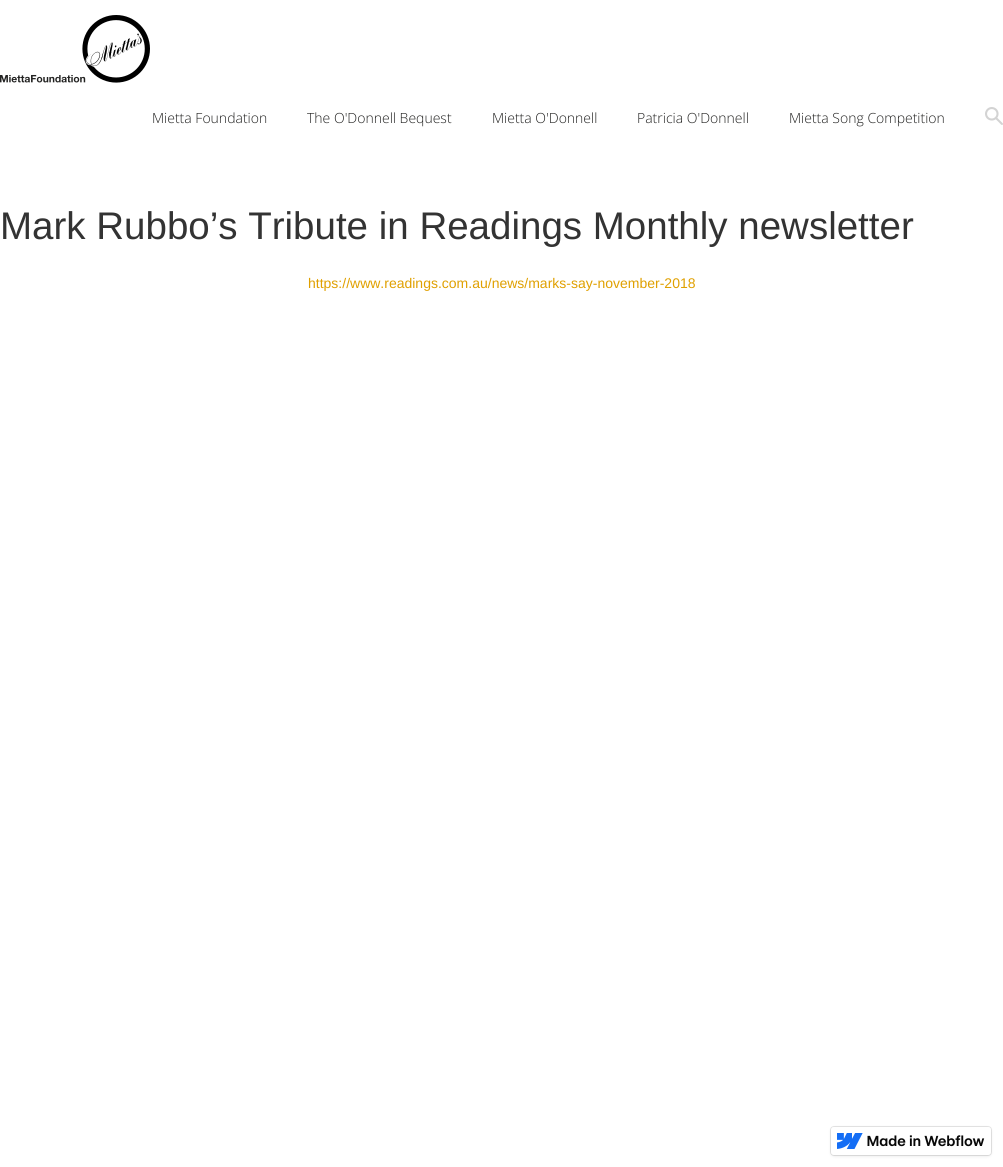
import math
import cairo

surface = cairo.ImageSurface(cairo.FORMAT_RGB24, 1003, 1167)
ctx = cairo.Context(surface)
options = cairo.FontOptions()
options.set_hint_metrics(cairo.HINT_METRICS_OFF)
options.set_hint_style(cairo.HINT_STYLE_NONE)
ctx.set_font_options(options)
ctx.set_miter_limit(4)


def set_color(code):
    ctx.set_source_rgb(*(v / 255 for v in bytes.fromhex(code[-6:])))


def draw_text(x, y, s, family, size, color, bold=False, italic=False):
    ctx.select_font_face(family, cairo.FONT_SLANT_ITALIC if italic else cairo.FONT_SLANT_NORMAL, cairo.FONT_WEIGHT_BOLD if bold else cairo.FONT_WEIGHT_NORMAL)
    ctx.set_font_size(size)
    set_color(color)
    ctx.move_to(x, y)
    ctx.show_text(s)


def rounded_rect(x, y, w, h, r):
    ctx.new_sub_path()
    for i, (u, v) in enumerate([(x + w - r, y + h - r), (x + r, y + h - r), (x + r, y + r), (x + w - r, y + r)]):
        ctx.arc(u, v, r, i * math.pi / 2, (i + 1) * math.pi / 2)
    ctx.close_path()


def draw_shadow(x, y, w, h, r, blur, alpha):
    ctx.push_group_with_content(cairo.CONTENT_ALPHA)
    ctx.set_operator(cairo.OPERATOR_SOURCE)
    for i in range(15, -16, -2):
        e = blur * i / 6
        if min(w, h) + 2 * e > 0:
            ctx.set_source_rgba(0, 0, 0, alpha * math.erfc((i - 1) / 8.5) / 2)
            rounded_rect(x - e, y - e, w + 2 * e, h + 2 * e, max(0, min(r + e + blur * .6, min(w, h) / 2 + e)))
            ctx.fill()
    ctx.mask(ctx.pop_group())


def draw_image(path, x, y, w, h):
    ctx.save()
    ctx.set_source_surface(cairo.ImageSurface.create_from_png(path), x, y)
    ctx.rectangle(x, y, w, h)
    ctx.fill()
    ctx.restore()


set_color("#ffffff")
ctx.paint()
draw_image("assets/img1.png", 0, 15, 150, 68)
draw_text(152, 123, "Mietta Foundation", "Open Sans Light", 14, "#222221")
draw_text(307, 123, "The O'Donnell Bequest", "Open Sans Light", 14, "#222221")
draw_text(492, 123, "Mietta O'Donnell", "Open Sans Light", 14, "#222221")
draw_text(637, 123, "Patricia O'Donnell", "Open Sans Light", 14, "#222221")
draw_text(789, 123, "Mietta Song Competition", "Open Sans Light", 14, "#222221")
draw_image("assets/img2.png", 985, 107, 18, 18)
draw_text(0, 239, "Mark Rubbo’s Tribute in Readings Monthly newsletter", "Liberation Sans", 38.5, "#333333")
draw_text(308, 288, "https://www.readings.com.au/news/marks-say-november-2018", "Liberation Sans", 14, "#e0a000")
set_color("#000000")
draw_shadow(831, 1128, 160, 28, 3, 1.5, 0.1)
rounded_rect(830.5, 1126.5, 161, 29, 3.5)
ctx.set_source_rgba(0, 0, 0, 0.1)
ctx.set_line_width(1)
ctx.stroke()
set_color("#ffffff")
rounded_rect(831, 1127, 160, 28, 3)
ctx.fill()
draw_image("assets/img3.png", 837, 1133, 26, 16)
draw_image("assets/img4.png", 867, 1135, 118, 12)
surface.write_to_png("output.png")
